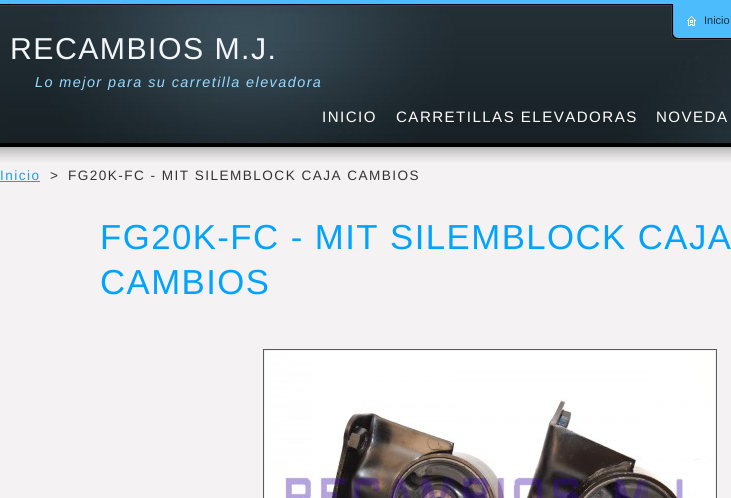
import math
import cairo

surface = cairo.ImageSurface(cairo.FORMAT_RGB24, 731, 498)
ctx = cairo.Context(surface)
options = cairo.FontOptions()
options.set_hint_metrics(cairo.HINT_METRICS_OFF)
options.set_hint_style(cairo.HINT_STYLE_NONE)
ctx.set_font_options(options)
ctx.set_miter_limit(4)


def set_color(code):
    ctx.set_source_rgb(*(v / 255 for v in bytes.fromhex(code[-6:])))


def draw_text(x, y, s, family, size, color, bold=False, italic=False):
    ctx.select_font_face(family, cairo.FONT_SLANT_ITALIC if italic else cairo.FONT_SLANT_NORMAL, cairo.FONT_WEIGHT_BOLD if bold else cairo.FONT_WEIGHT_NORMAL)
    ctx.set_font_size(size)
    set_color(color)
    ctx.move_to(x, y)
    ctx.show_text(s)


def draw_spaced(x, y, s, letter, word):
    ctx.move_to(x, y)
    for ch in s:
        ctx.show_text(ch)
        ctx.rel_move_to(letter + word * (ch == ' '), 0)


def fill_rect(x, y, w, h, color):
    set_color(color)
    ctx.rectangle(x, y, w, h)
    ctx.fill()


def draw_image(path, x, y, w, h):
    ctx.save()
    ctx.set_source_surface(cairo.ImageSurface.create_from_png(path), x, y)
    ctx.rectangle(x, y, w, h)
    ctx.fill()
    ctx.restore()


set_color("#f4f2f2")
ctx.paint()
draw_image("assets/img1.png", 0, 0, 731, 162)
draw_image("assets/img5.png", 10, 2, 721, 142)
draw_image("assets/img2.png", 671, 3, 7, 37)
draw_image("assets/img3.png", 678, 3, 53, 37)
draw_image("assets/img4.png", 687, 16, 9, 10)
draw_text(704, 24, "Inicio", "Liberation Sans", 11, "#222e35")
ctx.set_font_size(30.25)
set_color("#f3f6f9")
draw_spaced(10, 59, "RECAMBIOS M.J.", 1.45, 0)
ctx.select_font_face("Liberation Sans", cairo.FONT_SLANT_ITALIC)
ctx.set_font_size(14.4)
set_color("#96d9ff")
draw_spaced(35, 87, "Lo mejor para su carretilla elevadora", 1.45, 0)
ctx.select_font_face("Liberation Sans")
ctx.set_font_size(15.1)
set_color("#ffffff")
draw_spaced(322, 122, "INICIO", 1.45, 0)
draw_spaced(396, 122, "CARRETILLAS ELEVADORAS", 1.45, 0)
draw_spaced(656, 122, "NOVEDA", 1.45, 0)
ctx.set_font_size(13.6)
set_color("#1a9feb")
draw_spaced(0, 180, "Inicio", 1.45, 0)
fill_rect(0, 181, 40, 1, "#1a9feb")
set_color("#353333")
draw_spaced(50, 180, ">", 1.45, 0)
draw_spaced(68, 180, "FG20K-FC - MIT SILEMBLOCK CAJA CAMBIOS", 1.45, 0)
ctx.set_font_size(34.75)
set_color("#01a3ff")
draw_spaced(100, 249, "FG20K-FC - MIT SILEMBLOCK CAJA", 1.45, 0)
draw_spaced(100, 294, "CAMBIOS", 1.45, 0)
ctx.rectangle(263.5, 349.5, 453, 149)
set_color("#555a5c")
ctx.set_line_width(1)
ctx.stroke()
draw_image("assets/img6.png", 265, 351, 450, 147)
surface.write_to_png("output.png")
